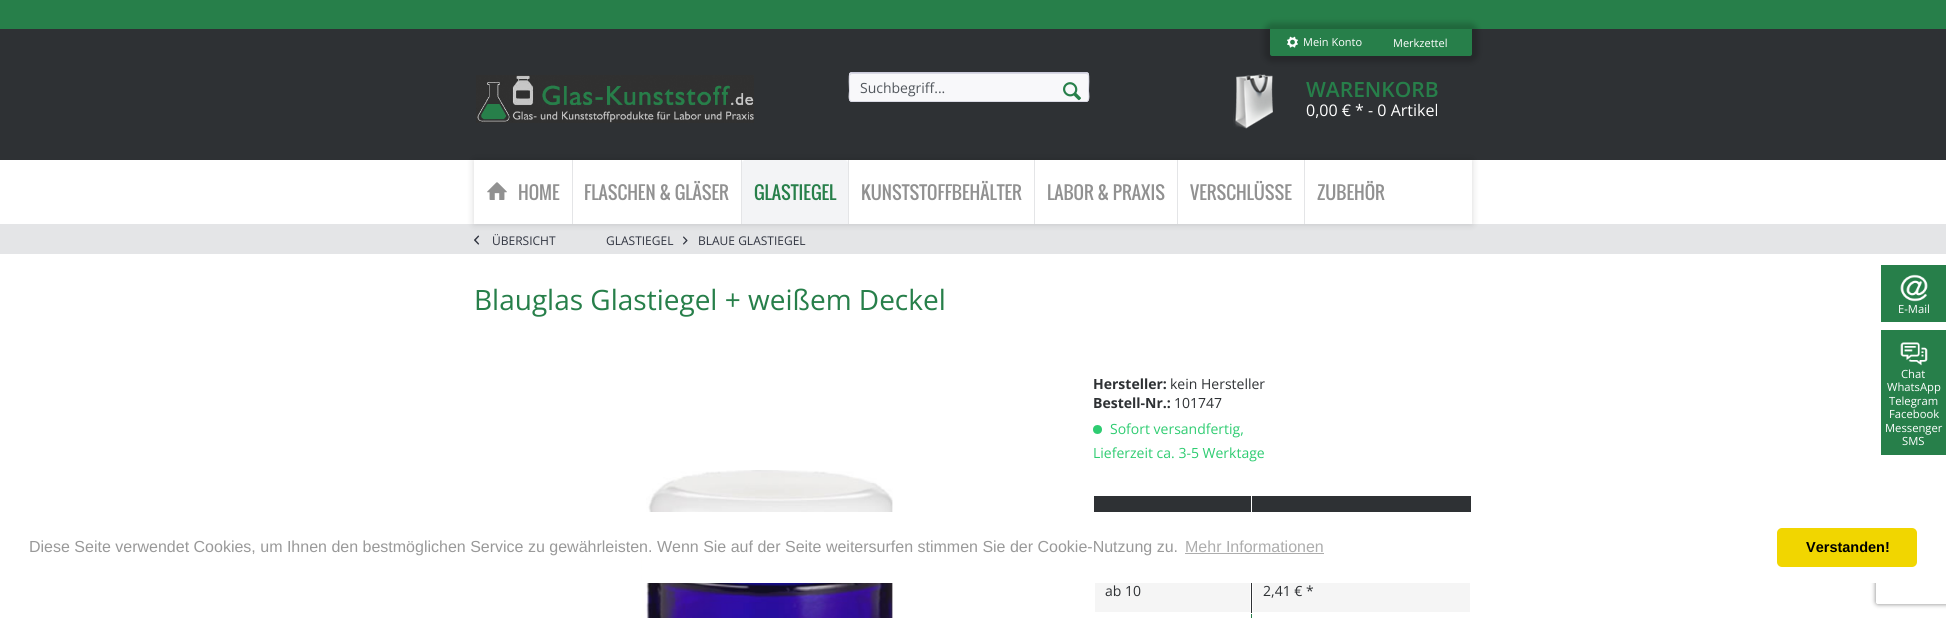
import math
import cairo

surface = cairo.ImageSurface(cairo.FORMAT_RGB24, 1946, 618)
ctx = cairo.Context(surface)
options = cairo.FontOptions()
options.set_hint_metrics(cairo.HINT_METRICS_OFF)
options.set_hint_style(cairo.HINT_STYLE_NONE)
ctx.set_font_options(options)
ctx.set_miter_limit(4)


def set_color(code):
    ctx.set_source_rgb(*(v / 255 for v in bytes.fromhex(code[-6:])))


def draw_text(x, y, s, family, size, color, bold=False, italic=False):
    ctx.select_font_face(family, cairo.FONT_SLANT_ITALIC if italic else cairo.FONT_SLANT_NORMAL, cairo.FONT_WEIGHT_BOLD if bold else cairo.FONT_WEIGHT_NORMAL)
    ctx.set_font_size(size)
    set_color(color)
    ctx.move_to(x, y)
    ctx.show_text(s)


def fill_rect(x, y, w, h, color):
    set_color(color)
    ctx.rectangle(x, y, w, h)
    ctx.fill()


def rounded_rect(x, y, w, h, r):
    ctx.new_sub_path()
    for i, (u, v) in enumerate([(x + w - r, y + h - r), (x + r, y + h - r), (x + r, y + r), (x + w - r, y + r)]):
        ctx.arc(u, v, r, i * math.pi / 2, (i + 1) * math.pi / 2)
    ctx.close_path()


def draw_shadow(x, y, w, h, r, blur, alpha):
    ctx.push_group_with_content(cairo.CONTENT_ALPHA)
    ctx.set_operator(cairo.OPERATOR_SOURCE)
    for i in range(15, -16, -2):
        e = blur * i / 6
        if min(w, h) + 2 * e > 0:
            ctx.set_source_rgba(0, 0, 0, alpha * math.erfc((i - 1) / 8.5) / 2)
            rounded_rect(x - e, y - e, w + 2 * e, h + 2 * e, max(0, min(r + e + blur * .6, min(w, h) / 2 + e)))
            ctx.fill()
    ctx.mask(ctx.pop_group())


def draw_image(path, x, y, w, h):
    ctx.save()
    ctx.set_source_surface(cairo.ImageSurface.create_from_png(path), x, y)
    ctx.rectangle(x, y, w, h)
    ctx.fill()
    ctx.restore()


set_color("#ffffff")
ctx.paint()
fill_rect(0, 29, 1946, 131, "#2e3134")
fill_rect(0, 0, 1946, 29, "#277f4a")
set_color("#000000")
draw_shadow(1264, 23, 214, 39, 8, 3, 0.2)
set_color("#277f4a")
ctx.new_path()
ctx.move_to(1270, 29)
ctx.line_to(1472, 29)
ctx.line_to(1472, 54)
ctx.curve_to(1472, 55, 1471, 56, 1470, 56)
ctx.line_to(1272, 56)
ctx.curve_to(1271, 56, 1270, 55, 1270, 54)
ctx.close_path()
ctx.fill()
draw_image("assets/img1.png", 1287, 36, 11, 12)
draw_text(1303, 46, "Mein Konto", "Open Sans", 11, "#ffffff")
draw_text(1393, 47, "Merkzettel", "Open Sans", 11, "#ffffff")
draw_image("assets/img2.png", 476, 75, 278, 48)
set_color("#f8f8fa")
rounded_rect(849, 72, 240, 30, 3)
ctx.fill()
set_color("#dadae5")
ctx.new_path()
ctx.move_to(852, 74)
ctx.line_to(1086, 74)
ctx.curve_to(1087, 74, 1088, 75, 1088, 76)
ctx.curve_to(1088, 75, 1088, 73, 1086, 73)
ctx.line_to(852, 73)
ctx.line_to(850, 74)
ctx.line_to(850, 76)
ctx.curve_to(850, 75, 851, 74, 852, 74)
ctx.close_path()
ctx.fill()
ctx.new_path()
ctx.move_to(850, 73)
ctx.line_to(852, 72.5)
ctx.line_to(1086, 72.5)
ctx.line_to(1088, 73)
set_color("#cbcbdb")
ctx.set_line_width(1)
ctx.stroke()
ctx.new_path()
ctx.move_to(1088, 73)
ctx.curve_to(1089.5, 75, 1088.5, 88, 1088.5, 91)
ctx.curve_to(1088.5, 92.5, 1090.5, 101.5, 1086, 101.5)
ctx.line_to(852, 101.5)
ctx.curve_to(847.5, 101.5, 849.5, 92.5, 849.5, 91)
ctx.curve_to(849.5, 88, 848.5, 75, 850, 73)
set_color("#dadae5")
ctx.stroke()
draw_text(860, 93, "Suchbegriff...", "Open Sans", 14, "#52575d")
draw_image("assets/img3.png", 1063, 82, 18, 19)
draw_image("assets/img4.png", 1233, 74, 40, 55)
draw_text(1306, 97, "WARENKORB", "Open Sans SemiBold", 21, "#277f4a")
draw_text(1306, 116, "0,00 € * - 0 Artikel", "Open Sans", 16, "#ffffff")
fill_rect(0, 224, 1946, 30, "#e4e5e7")
ctx.save()
ctx.set_fill_rule(cairo.FILL_RULE_EVEN_ODD)
ctx.new_path()
ctx.move_to(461, 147)
ctx.line_to(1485, 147)
ctx.line_to(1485, 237)
ctx.line_to(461, 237)
ctx.close_path()
ctx.move_to(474, 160)
ctx.line_to(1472, 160)
ctx.line_to(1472, 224)
ctx.line_to(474, 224)
ctx.close_path()
ctx.clip()
set_color("#000000")
draw_shadow(474, 160, 998, 64, 0, 4, 0.15)
ctx.restore()
fill_rect(572, 160, 1, 64, "#e4e5e7")
draw_image("assets/img5.png", 487, 182, 20, 18)
draw_text(518, 200, "HOME", "Oswald", 18, "#919191")
fill_rect(741, 160, 1, 64, "#e4e5e7")
draw_text(584, 200, "FLASCHEN & GLÄSER", "Oswald", 18, "#919191")
fill_rect(848, 160, 1, 64, "#e4e5e7")
set_color("#f3f4f6")
ctx.new_path()
ctx.move_to(745, 160)
ctx.line_to(845, 160)
ctx.curve_to(846.5, 160, 848, 161.5, 848, 163)
ctx.line_to(848, 224)
ctx.line_to(742, 224)
ctx.line_to(742, 163)
ctx.curve_to(742, 161.5, 743.5, 160, 745, 160)
ctx.close_path()
ctx.fill()
draw_text(754, 200, "GLASTIEGEL", "Oswald", 18, "#277f4a")
fill_rect(1034, 160, 1, 64, "#e4e5e7")
draw_text(861, 200, "KUNSTSTOFFBEHÄLTER", "Oswald", 18, "#919191")
fill_rect(1177, 160, 1, 64, "#e4e5e7")
draw_text(1047, 200, "LABOR & PRAXIS", "Oswald", 18, "#919191")
fill_rect(1304, 160, 1, 64, "#e4e5e7")
draw_text(1190, 200, "VERSCHLÜSSE", "Oswald", 18, "#919191")
draw_text(1317, 200, "ZUBEHÖR", "Oswald", 18, "#919191")
draw_image("assets/img6.png", 474, 235, 6, 10)
draw_text(492, 245, "ÜBERSICHT", "Open Sans", 12, "#303440")
draw_text(606, 245, "GLASTIEGEL", "Open Sans", 12, "#303440")
draw_image("assets/img7.png", 683, 236, 5, 9)
draw_text(698, 245, "BLAUE GLASTIEGEL", "Open Sans", 12, "#303440")
draw_text(474, 310, "Blauglas Glastiegel + weißem Deckel", "Open Sans", 28, "#277f4a")
draw_image("assets/img8.png", 641, 470, 252, 148)
draw_text(1093, 389, "Hersteller:", "Open Sans", 14, "#2e3134", bold=True)
draw_text(1170, 389, "kein Hersteller", "Open Sans", 14, "#2e3134")
draw_text(1093, 408, "Bestell-Nr.:", "Open Sans", 14, "#2e3134", bold=True)
draw_text(1174, 408, "101747", "Open Sans", 14, "#2e3134")
set_color("#2ecc71")
ctx.new_path()
ctx.arc(1097.5, 429.5, 4.5, 0, 2 * math.pi)
ctx.fill()
draw_text(1110, 434, "Sofort versandfertig,", "Open Sans", 14, "#2ecc71")
draw_text(1093, 458, "Lieferzeit ca. 3-5 Werktage", "Open Sans", 14, "#2ecc71")
fill_rect(1094, 496, 157, 16, "#2e3134")
fill_rect(1252, 496, 219, 16, "#2e3134")
fill_rect(1251, 583, 1, 30, "#2e3134")
fill_rect(1095, 583, 155, 29, "#f5f5f5")
draw_text(1105, 596, "ab 10", "Open Sans", 14, "#2e3134")
fill_rect(1253, 583, 217, 29, "#f5f5f5")
draw_text(1263, 596, "2,41 € *", "Open Sans", 14, "#2e3134")
fill_rect(1251, 614, 1, 4, "#277f4a")
fill_rect(1881, 265, 65, 57, "#277f4a")
draw_image("assets/img9.png", 1900, 274, 28, 28)
draw_text(1898, 313, "E-Mail", "Open Sans", 11.25, "#ffffff")
fill_rect(1881, 330, 65, 125, "#277f4a")
draw_image("assets/img10.png", 1900, 342, 28, 24)
draw_text(1901, 378, "Chat", "Open Sans", 11.25, "#ffffff")
draw_text(1887, 391, "WhatsApp", "Open Sans", 11.25, "#ffffff")
draw_text(1889, 405, "Telegram", "Open Sans", 11.25, "#ffffff")
draw_text(1889, 418, "Facebook", "Open Sans", 11.25, "#ffffff")
draw_text(1885, 432, "Messenger", "Open Sans", 11.25, "#ffffff")
draw_text(1902, 445, "SMS", "Open Sans", 11.25, "#ffffff")
ctx.save()
ctx.set_fill_rule(cairo.FILL_RULE_EVEN_ODD)
ctx.new_path()
ctx.move_to(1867, 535)
ctx.line_to(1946, 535)
ctx.line_to(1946, 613)
ctx.line_to(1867, 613)
ctx.close_path()
ctx.move_to(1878, 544)
ctx.line_to(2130, 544)
ctx.curve_to(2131, 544, 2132, 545, 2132, 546)
ctx.line_to(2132, 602)
ctx.curve_to(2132, 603, 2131, 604, 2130, 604)
ctx.line_to(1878, 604)
ctx.curve_to(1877, 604, 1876, 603, 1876, 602)
ctx.line_to(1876, 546)
ctx.curve_to(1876, 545, 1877, 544, 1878, 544)
ctx.close_path()
ctx.clip()
set_color("#808080")
draw_shadow(1876, 544, 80, 60, 2, 2.5, 1)
ctx.restore()
fill_rect(642, 512, 1304, 71, "#ffffff")
draw_text(29, 552, "Diese Seite verwendet Cookies, um Ihnen den bestmöglichen Service zu gewährleisten. Wenn Sie auf der Seite weitersurfen stimmen Sie der Cookie-Nutzung zu.", "Liberation Sans", 16, "#999999")
draw_text(1185, 552, "Mehr Informationen", "Liberation Sans", 16, "#adadad")
fill_rect(1185, 553, 139, 1, "#adadad")
set_color("#f1d600")
rounded_rect(1777, 528, 140, 39, 5)
ctx.fill()
draw_text(1806, 552, "Verstanden!", "Liberation Sans", 14.5, "#000000", bold=True)
surface.write_to_png("output.png")
